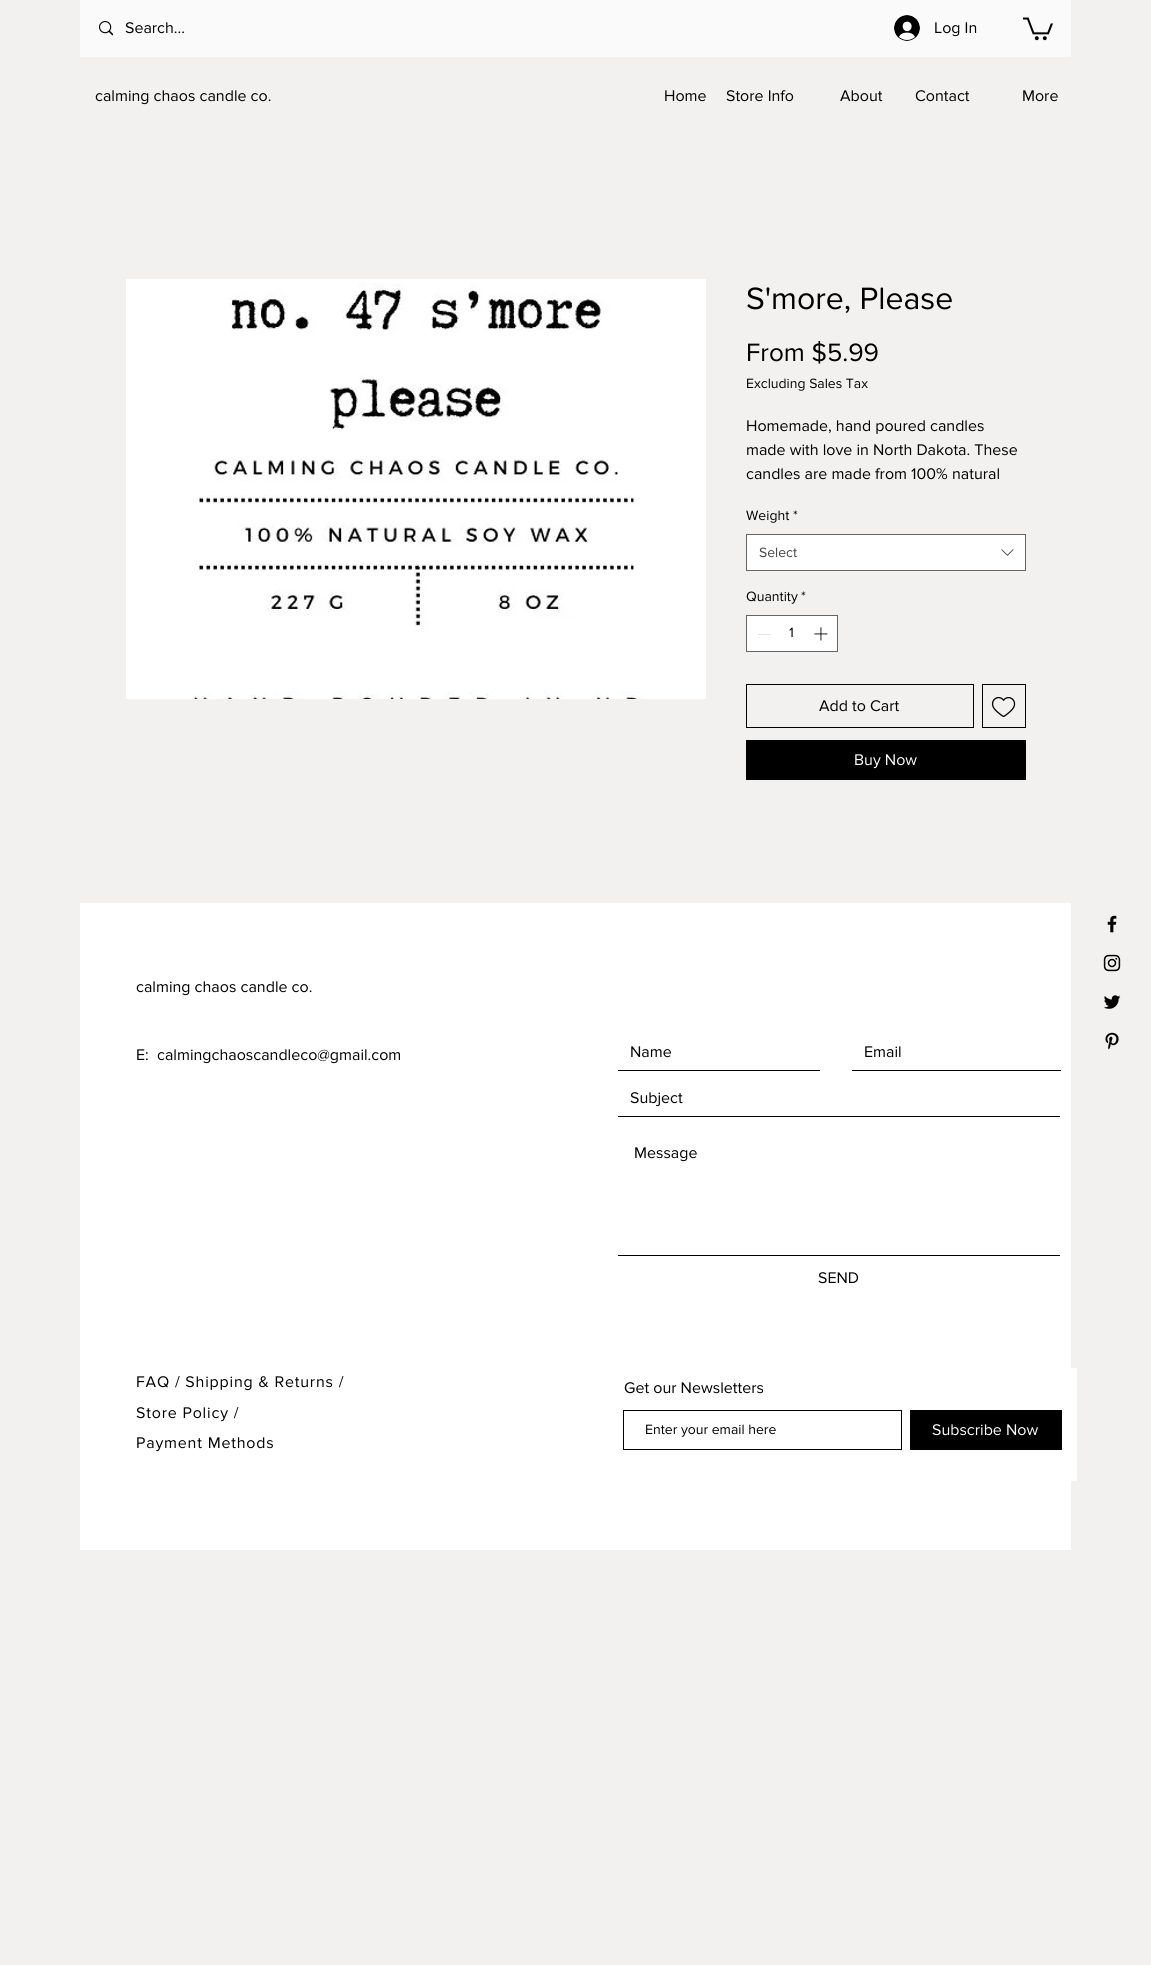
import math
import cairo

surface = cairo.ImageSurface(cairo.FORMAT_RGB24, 1151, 1965)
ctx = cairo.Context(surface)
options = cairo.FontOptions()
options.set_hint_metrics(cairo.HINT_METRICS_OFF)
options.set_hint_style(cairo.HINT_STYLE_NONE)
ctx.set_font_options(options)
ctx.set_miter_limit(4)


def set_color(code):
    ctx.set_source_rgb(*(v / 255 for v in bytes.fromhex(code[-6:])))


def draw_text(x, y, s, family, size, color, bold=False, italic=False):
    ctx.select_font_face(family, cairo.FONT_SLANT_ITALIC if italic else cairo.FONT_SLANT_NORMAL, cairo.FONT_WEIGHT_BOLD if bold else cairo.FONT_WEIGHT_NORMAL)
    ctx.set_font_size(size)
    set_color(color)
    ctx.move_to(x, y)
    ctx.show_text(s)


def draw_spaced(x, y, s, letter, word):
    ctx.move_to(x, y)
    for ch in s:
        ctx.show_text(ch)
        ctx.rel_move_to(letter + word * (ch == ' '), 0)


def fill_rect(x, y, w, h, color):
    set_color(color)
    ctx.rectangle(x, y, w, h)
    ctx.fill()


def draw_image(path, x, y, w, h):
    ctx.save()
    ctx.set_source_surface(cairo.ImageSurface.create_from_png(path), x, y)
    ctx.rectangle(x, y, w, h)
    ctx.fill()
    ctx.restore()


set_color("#f2f1f0")
ctx.paint()
fill_rect(80, 0, 991, 57, "#fafafa")
draw_image("assets/img1.png", 99, 21, 14, 15)
draw_text(125, 33, "Search...", "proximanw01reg", 16, "#000000")
draw_image("assets/img2.png", 894, 15, 26, 26)
draw_text(934, 33, "Log In", "proximanw01reg", 16, "#000000")
draw_image("assets/img3.png", 1023, 17, 30, 24)
draw_text(95, 101, "calming chaos candle co.", "proximanw01reg", 16, "#000000")
draw_text(664, 101, "Home", "proximanw01reg", 16, "#000000")
draw_text(726, 101, "Store Info", "proximanw01reg", 16, "#000000")
draw_text(840, 101, "About", "proximanw01reg", 16, "#000000")
draw_text(915, 101, "Contact", "proximanw01reg", 16, "#000000")
draw_text(1022, 101, "More", "proximanw01reg", 16, "#000000")
draw_image("assets/img4.png", 126, 279, 580, 420)
draw_text(746, 309, "S'more, Please", "proximanw01reg", 32, "#000000")
draw_text(746, 361, "From $5.99", "proximanw01reg", 26, "#000000")
draw_text(746, 388, "Excluding Sales Tax", "proximanw01reg", 14, "#000000")
draw_text(746, 431, "Homemade, hand poured candles", "proximanw01reg", 16, "#000000")
draw_text(746, 455, "made with love in North Dakota. These", "proximanw01reg", 16, "#000000")
draw_text(746, 479, "candles are made from 100% natural", "proximanw01reg", 16, "#000000")
draw_text(746, 520, "Weight", "proximanw01reg", 14, "#000000")
draw_text(793, 520, "*", "proximanw01reg", 14, "#000000")
set_color("#ffffff")
ctx.rectangle(746.5, 534.5, 279, 36)
ctx.fill_preserve()
set_color("#666666")
ctx.set_line_width(1)
ctx.stroke()
draw_text(759, 557, "Select", "proximanw01reg", 14, "#444444")
draw_image("assets/img5.png", 1001, 549, 13, 7)
draw_text(746, 601, "Quantity", "proximanw01reg", 14, "#000000")
draw_text(801, 601, "*", "proximanw01reg", 14, "#000000")
set_color("#ffffff")
ctx.rectangle(746.5, 615.5, 91, 36)
ctx.fill_preserve()
set_color("#666666")
ctx.stroke()
fill_rect(758, 634, 13, 1, "#e3e3e3")
draw_text(789, 637, "1", "proximanw01reg", 14, "#000000")
draw_image("assets/img6.png", 814, 627, 14, 14)
ctx.rectangle(746.5, 684.5, 227, 43)
ctx.stroke()
draw_text(819, 711, "Add to Cart", "proximanw01reg", 16, "#000000")
ctx.rectangle(982.5, 684.5, 43, 43)
ctx.stroke()
draw_image("assets/img7.png", 991, 697, 25, 20)
fill_rect(746, 740, 280, 40, "#000000")
draw_text(854, 765, "Buy Now", "proximanw01reg", 16, "#ffffff")
fill_rect(80, 903, 991, 647, "#ffffff")
draw_text(136, 992, "calming chaos candle co.", "proximanw01reg", 16, "#000000")
draw_text(136, 1060, "E:", "proximanw01reg", 16, "#000000")
draw_text(157, 1060, "calmingchaoscandleco@gmail.com", "proximanw01reg", 16, "#000000")
fill_rect(618, 1070, 202, 1, "#000000")
draw_text(630, 1057, "Name", "proximanw01reg", 16, "#000000")
fill_rect(852, 1070, 209, 1, "#000000")
draw_text(864, 1057, "Email", "proximanw01reg", 16, "#000000")
fill_rect(618, 1116, 442, 1, "#000000")
draw_text(630, 1103, "Subject", "proximanw01reg", 16, "#000000")
fill_rect(618, 1255, 442, 1, "#000000")
draw_text(634, 1158, "Message", "proximanw01reg", 16, "#000000")
draw_text(818, 1283, "SEND", "proximanw01reg", 16, "#000000")
draw_spaced(136, 1387, "FAQ / Shipping & Returns /", 0.8, 0)
draw_spaced(136, 1418, "Store Policy /", 0.8, 0)
draw_spaced(136, 1448, "Payment Methods", 0.8, 0)
fill_rect(1071, 1368, 6, 113, "#ffffff")
draw_text(624, 1393, "Get our Newsletters", "proximanw01reg", 16, "#000000")
ctx.rectangle(623.5, 1410.5, 278, 39)
ctx.stroke()
draw_text(645, 1434, "Enter your email here", "proximanw01reg", 14, "#000000")
fill_rect(910, 1410, 152, 40, "#000000")
draw_text(932, 1435, "Subscribe Now", "proximanw01reg", 16, "#ffffff")
draw_image("assets/img8.png", 1107, 915, 10, 18)
draw_image("assets/img9.png", 1103, 954, 18, 18)
draw_image("assets/img10.png", 1104, 995, 17, 14)
draw_image("assets/img11.png", 1105, 1032, 14, 18)
surface.write_to_png("output.png")
